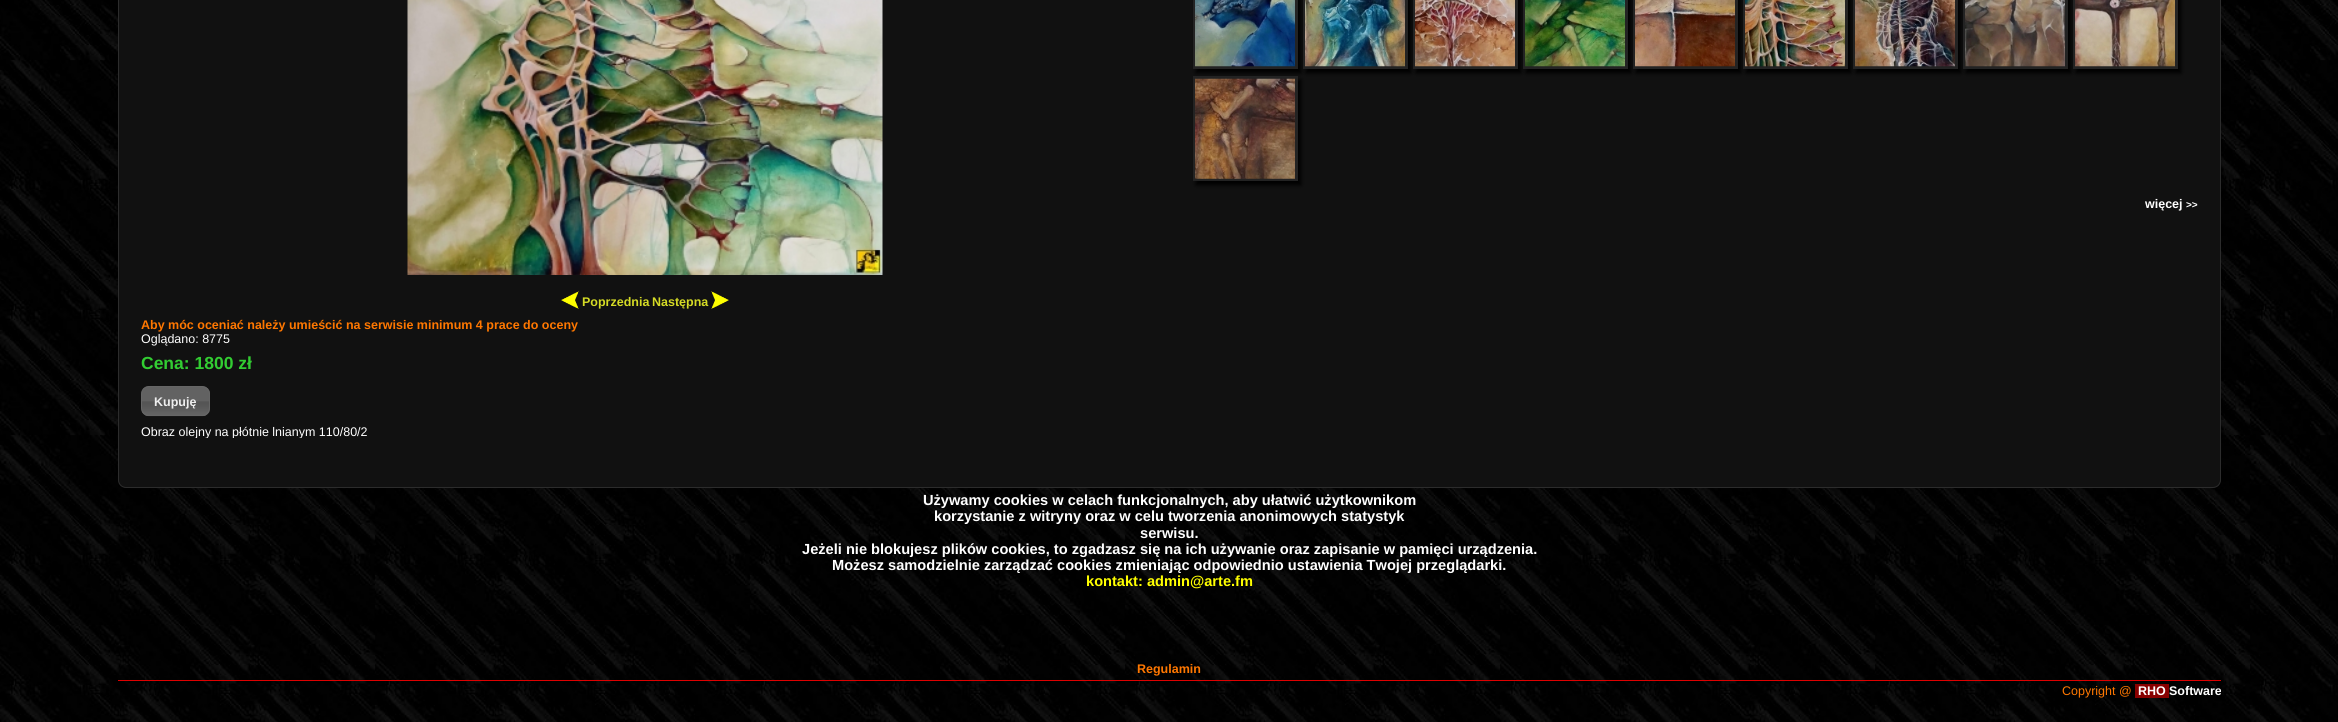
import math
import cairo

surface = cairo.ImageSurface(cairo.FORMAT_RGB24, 2338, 722)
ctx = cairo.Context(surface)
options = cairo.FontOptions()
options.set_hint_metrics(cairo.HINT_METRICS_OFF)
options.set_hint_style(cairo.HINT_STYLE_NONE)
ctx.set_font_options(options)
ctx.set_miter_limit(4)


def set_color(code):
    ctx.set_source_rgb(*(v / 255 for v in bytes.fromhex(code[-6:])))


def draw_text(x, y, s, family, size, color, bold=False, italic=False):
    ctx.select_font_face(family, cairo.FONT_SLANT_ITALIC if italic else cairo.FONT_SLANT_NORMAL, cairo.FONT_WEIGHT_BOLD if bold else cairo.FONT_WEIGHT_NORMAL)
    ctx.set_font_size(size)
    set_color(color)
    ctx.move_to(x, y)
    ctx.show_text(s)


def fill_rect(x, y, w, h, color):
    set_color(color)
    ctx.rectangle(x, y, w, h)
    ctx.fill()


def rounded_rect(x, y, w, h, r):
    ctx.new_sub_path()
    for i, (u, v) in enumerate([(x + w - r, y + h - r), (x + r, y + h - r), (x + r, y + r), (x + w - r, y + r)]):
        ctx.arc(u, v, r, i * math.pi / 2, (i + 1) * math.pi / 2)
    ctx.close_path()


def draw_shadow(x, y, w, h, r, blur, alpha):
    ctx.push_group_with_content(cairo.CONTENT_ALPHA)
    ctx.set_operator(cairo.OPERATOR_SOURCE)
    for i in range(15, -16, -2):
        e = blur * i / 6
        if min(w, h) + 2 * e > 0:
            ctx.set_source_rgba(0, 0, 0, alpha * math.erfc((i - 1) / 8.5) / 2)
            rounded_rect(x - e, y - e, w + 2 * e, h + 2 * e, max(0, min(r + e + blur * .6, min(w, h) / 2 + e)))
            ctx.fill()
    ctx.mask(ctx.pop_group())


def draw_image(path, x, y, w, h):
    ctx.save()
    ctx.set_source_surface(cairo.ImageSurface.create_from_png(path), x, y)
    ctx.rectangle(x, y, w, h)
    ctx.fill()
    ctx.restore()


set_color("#ffffff")
ctx.paint()
draw_image("assets/img1.png", 0, 0, 2338, 722)
set_color("#111111")
rounded_rect(118.5, -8.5, 2102, 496, 7.5)
ctx.fill_preserve()
set_color("#2c2c2c")
ctx.set_line_width(1)
ctx.stroke()
set_color("#000000")
draw_shadow(1196, -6, 105, 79, 0, 2, 1)
ctx.rectangle(1194.5, -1.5, 102, 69)
set_color("#232323")
ctx.set_line_width(3)
ctx.stroke()
draw_image("assets/img2.png", 1195, 0, 100, 67)
set_color("#000000")
draw_shadow(1306, -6, 105, 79, 0, 2, 1)
ctx.rectangle(1304.5, -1.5, 102, 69)
set_color("#232323")
ctx.stroke()
draw_image("assets/img3.png", 1305, 0, 100, 67)
set_color("#000000")
draw_shadow(1416, -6, 105, 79, 0, 2, 1)
ctx.rectangle(1414.5, -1.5, 102, 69)
set_color("#232323")
ctx.stroke()
draw_image("assets/img4.png", 1415, 0, 100, 67)
set_color("#000000")
draw_shadow(1526, -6, 105, 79, 0, 2, 1)
ctx.rectangle(1524.5, -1.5, 102, 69)
set_color("#232323")
ctx.stroke()
draw_image("assets/img5.png", 1525, 0, 100, 67)
set_color("#000000")
draw_shadow(1636, -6, 105, 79, 0, 2, 1)
ctx.rectangle(1634.5, -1.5, 102, 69)
set_color("#232323")
ctx.stroke()
draw_image("assets/img6.png", 1635, 0, 100, 67)
set_color("#000000")
draw_shadow(1746, -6, 105, 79, 0, 2, 1)
ctx.rectangle(1744.5, -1.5, 102, 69)
set_color("#232323")
ctx.stroke()
draw_image("assets/img7.png", 1745, 0, 100, 67)
set_color("#000000")
draw_shadow(1856, -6, 105, 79, 0, 2, 1)
ctx.rectangle(1854.5, -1.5, 102, 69)
set_color("#232323")
ctx.stroke()
draw_image("assets/img8.png", 1855, 0, 100, 67)
set_color("#000000")
draw_shadow(1966, -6, 105, 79, 0, 2, 1)
ctx.rectangle(1964.5, -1.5, 102, 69)
set_color("#232323")
ctx.stroke()
draw_image("assets/img9.png", 1965, 0, 100, 67)
set_color("#000000")
draw_shadow(2076, -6, 105, 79, 0, 2, 1)
ctx.rectangle(2074.5, -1.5, 102, 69)
set_color("#232323")
ctx.stroke()
draw_image("assets/img10.png", 2075, 0, 100, 67)
set_color("#000000")
draw_shadow(1196, 80, 105, 105, 0, 2, 1)
ctx.rectangle(1194.5, 77.5, 102, 102)
set_color("#232323")
ctx.stroke()
draw_image("assets/img11.png", 1195, 78, 100, 101)
draw_text(2145, 208, "więcej", "Liberation Sans", 12.5, "#ffffff", bold=True)
draw_text(2186, 208, ">>", "Liberation Sans", 10, "#ffffff", bold=True)
draw_image("assets/img12.png", 407, 0, 476, 275)
draw_image("assets/img13.png", 561, 291, 18, 18)
draw_text(582, 306, "Poprzednia", "Liberation Sans", 12.5, "#d5db25", bold=True)
draw_text(652, 306, "Następna", "Liberation Sans", 12.5, "#d5db25", bold=True)
draw_image("assets/img14.png", 711, 291, 18, 18)
draw_text(141, 329, "Aby móc oceniać należy umieścić na serwisie minimum 4 prace do oceny", "Liberation Sans", 12.5, "#ff7700", bold=True)
draw_text(141, 343, "Oglądano: 8775", "Liberation Sans", 12.5, "#ffffff")
draw_text(141, 369, "Cena: 1800 zł", "Liberation Sans", 17.5, "#32cd32", bold=True)
draw_image("assets/img15.png", 141, 386, 69, 31)
rounded_rect(141.5, 386.5, 68, 29, 7.5)
set_color("#666666")
ctx.set_line_width(1)
ctx.stroke()
draw_text(154, 406, "Kupuję", "Liberation Sans", 12.5, "#eeeeee", bold=True)
ctx.save()
ctx.rectangle(141, 0, 2057, 438)
ctx.clip()
draw_text(141, 436, "Obraz olejny na płótnie lnianym 110/80/2", "Liberation Sans", 12.5, "#ffffff")
ctx.restore()
draw_text(923, 505, "Używamy cookies w celach funkcjonalnych, aby ułatwić użytkownikom", "Liberation Sans", 14.62, "#ffffff", bold=True)
draw_text(934, 521, "korzystanie z witryny oraz w celu tworzenia anonimowych statystyk", "Liberation Sans", 14.62, "#ffffff", bold=True)
draw_text(1140, 538, "serwisu.", "Liberation Sans", 14.62, "#ffffff", bold=True)
draw_text(802, 554, "Jeżeli nie blokujesz plików cookies, to zgadzasz się na ich używanie oraz zapisanie w pamięci urządzenia.", "Liberation Sans", 14.62, "#ffffff", bold=True)
draw_text(832, 570, "Możesz samodzielnie zarządzać cookies zmieniając odpowiednio ustawienia Twojej przeglądarki.", "Liberation Sans", 14.62, "#ffffff", bold=True)
draw_text(1086, 586, "kontakt: admin@arte.fm", "Liberation Sans", 14.62, "#ffff00", bold=True)
draw_text(1137, 673, "Regulamin", "Liberation Sans", 12.5, "#ff7700", bold=True)
fill_rect(118, 680, 2103, 1, "#df0000")
draw_text(2062, 695, "Copyright @", "Liberation Sans", 12.5, "#ff7700")
fill_rect(2135, 684, 34, 14, "#880000")
draw_text(2138, 695, "RHO", "Liberation Sans", 12.5, "#ffffff", bold=True)
ctx.save()
ctx.rectangle(118, 681, 2103, 19)
ctx.clip()
draw_text(2169, 695, "Software", "Liberation Sans", 12.5, "#ffffff", bold=True)
ctx.restore()
surface.write_to_png("output.png")
